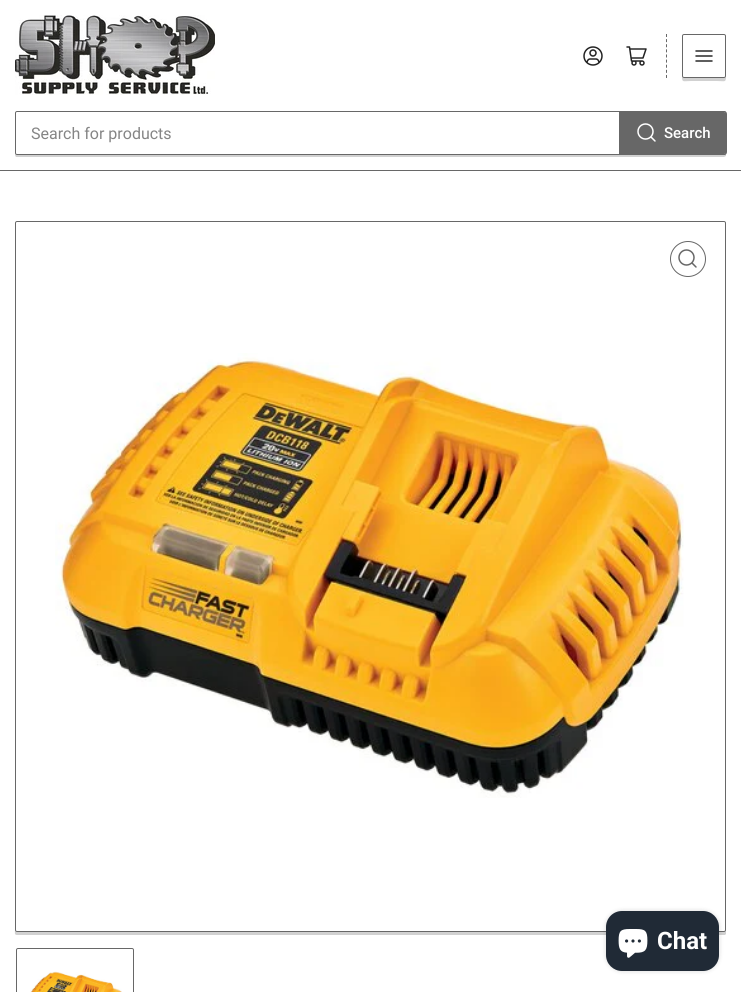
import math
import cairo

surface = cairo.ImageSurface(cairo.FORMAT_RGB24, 741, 992)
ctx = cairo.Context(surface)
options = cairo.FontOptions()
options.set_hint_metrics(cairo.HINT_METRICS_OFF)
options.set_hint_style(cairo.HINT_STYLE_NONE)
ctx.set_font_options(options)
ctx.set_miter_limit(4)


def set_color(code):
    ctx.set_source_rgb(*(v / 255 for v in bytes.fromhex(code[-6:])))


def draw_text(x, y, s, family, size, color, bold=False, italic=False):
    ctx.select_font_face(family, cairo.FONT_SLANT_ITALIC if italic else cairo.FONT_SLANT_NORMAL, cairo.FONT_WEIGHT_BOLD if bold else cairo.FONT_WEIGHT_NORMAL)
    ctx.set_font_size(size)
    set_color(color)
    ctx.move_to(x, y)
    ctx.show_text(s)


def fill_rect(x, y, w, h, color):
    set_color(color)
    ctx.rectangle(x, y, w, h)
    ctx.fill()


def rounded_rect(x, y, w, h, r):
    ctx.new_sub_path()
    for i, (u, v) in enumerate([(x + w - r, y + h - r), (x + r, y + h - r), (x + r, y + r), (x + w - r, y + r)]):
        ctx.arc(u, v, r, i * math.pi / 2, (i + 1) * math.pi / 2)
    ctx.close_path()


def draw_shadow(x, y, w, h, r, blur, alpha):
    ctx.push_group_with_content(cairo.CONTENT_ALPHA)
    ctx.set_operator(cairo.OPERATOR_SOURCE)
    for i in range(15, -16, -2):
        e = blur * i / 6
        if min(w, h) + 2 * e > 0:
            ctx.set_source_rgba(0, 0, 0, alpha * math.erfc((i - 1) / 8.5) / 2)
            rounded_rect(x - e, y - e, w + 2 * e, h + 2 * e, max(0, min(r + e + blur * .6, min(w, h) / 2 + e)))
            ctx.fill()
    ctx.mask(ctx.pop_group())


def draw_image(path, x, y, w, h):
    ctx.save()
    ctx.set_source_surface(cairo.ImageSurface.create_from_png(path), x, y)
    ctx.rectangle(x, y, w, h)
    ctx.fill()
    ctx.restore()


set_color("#ffffff")
ctx.paint()
fill_rect(0, 170, 741, 1, "#676767")
draw_image("assets/img1.png", 15, 15, 200, 80)
draw_image("assets/img2.png", 583, 46, 20, 20)
draw_image("assets/img3.png", 626, 46, 21, 20)
ctx.new_path()
ctx.move_to(666.5, 34)
ctx.line_to(666.5, 78)
ctx.set_line_width(1)
ctx.set_dash([3, 2.12])
ctx.stroke()
set_color("#d1d1d1")
ctx.new_path()
ctx.move_to(682, 76)
ctx.curve_to(682, 83, 683, 81, 691, 81)
ctx.line_to(717, 81)
ctx.curve_to(725, 81, 726, 83, 726, 76)
ctx.curve_to(726, 77, 725, 78, 724, 78)
ctx.line_to(684, 78)
ctx.curve_to(683, 78, 682, 77, 682, 76)
ctx.close_path()
ctx.fill()
rounded_rect(682.5, 34.5, 43, 43, 1.5)
set_color("#676767")
ctx.set_dash([])
ctx.stroke()
draw_image("assets/img4.png", 695, 50, 18, 12)
set_color("#d1d1d1")
ctx.new_path()
ctx.move_to(15, 153)
ctx.curve_to(15, 154, 15, 156, 16, 157)
ctx.line_to(724, 157)
ctx.line_to(726, 156)
ctx.line_to(726, 153)
ctx.curve_to(726, 154, 725, 155, 724, 155)
ctx.line_to(17, 155)
ctx.curve_to(16, 155, 15, 154, 15, 153)
ctx.close_path()
ctx.fill()
set_color("#ffffff")
rounded_rect(15.5, 111.5, 710, 43, 1.5)
ctx.fill_preserve()
set_color("#676767")
ctx.stroke()
draw_text(31, 139, "Search for products", "Roboto", 16, "#858585")
ctx.new_path()
ctx.move_to(619.5, 111.5)
ctx.line_to(724, 111.5)
ctx.curve_to(725.5, 111.5, 726.5, 112.5, 726.5, 114)
ctx.line_to(726.5, 152)
ctx.curve_to(726.5, 153.5, 725.5, 154.5, 724, 154.5)
ctx.line_to(619.5, 154.5)
ctx.close_path()
set_color("#676767")
ctx.stroke()
ctx.new_path()
ctx.move_to(620, 112)
ctx.line_to(724, 112)
ctx.curve_to(725, 112, 726, 113, 726, 114)
ctx.line_to(726, 152)
ctx.curve_to(726, 153, 725, 154, 724, 154)
ctx.line_to(620, 154)
ctx.close_path()
ctx.fill()
draw_image("assets/img5.png", 637, 123, 19, 19)
draw_text(664, 138, "Search", "Roboto Medium", 15, "#ffffff")
set_color("#d1d1d1")
ctx.new_path()
ctx.move_to(15, 930)
ctx.curve_to(15, 932, 14, 935, 17, 935)
ctx.line_to(725, 935)
ctx.line_to(726, 934)
ctx.line_to(726, 930)
ctx.curve_to(726, 931, 725, 932, 724, 932)
ctx.line_to(17, 932)
ctx.curve_to(16, 932, 15, 931, 15, 930)
ctx.close_path()
ctx.fill()
set_color("#ffffff")
rounded_rect(15.5, 221.5, 710, 710, 1.5)
ctx.fill_preserve()
set_color("#676767")
ctx.stroke()
ctx.arc(688, 259, 17.5, 0, 2 * math.pi)
ctx.stroke()
draw_image("assets/img6.png", 678, 249, 19, 19)
draw_image("assets/img7.png", 55, 353, 629, 445)
rounded_rect(16.5, 948.5, 117, 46, 1.5)
ctx.stroke()
draw_image("assets/img8.png", 30, 971, 92, 21)
set_color("#000000")
draw_shadow(606, 911, 113, 60, 16, 2.5, 0.15)
set_color("#202a36")
rounded_rect(606, 911, 113, 60, 16)
ctx.fill()
draw_image("assets/img9.png", 618, 929, 30, 29)
draw_text(657, 949, "Chat", "Roboto", 24, "#ffffff", bold=True)
surface.write_to_png("output.png")
